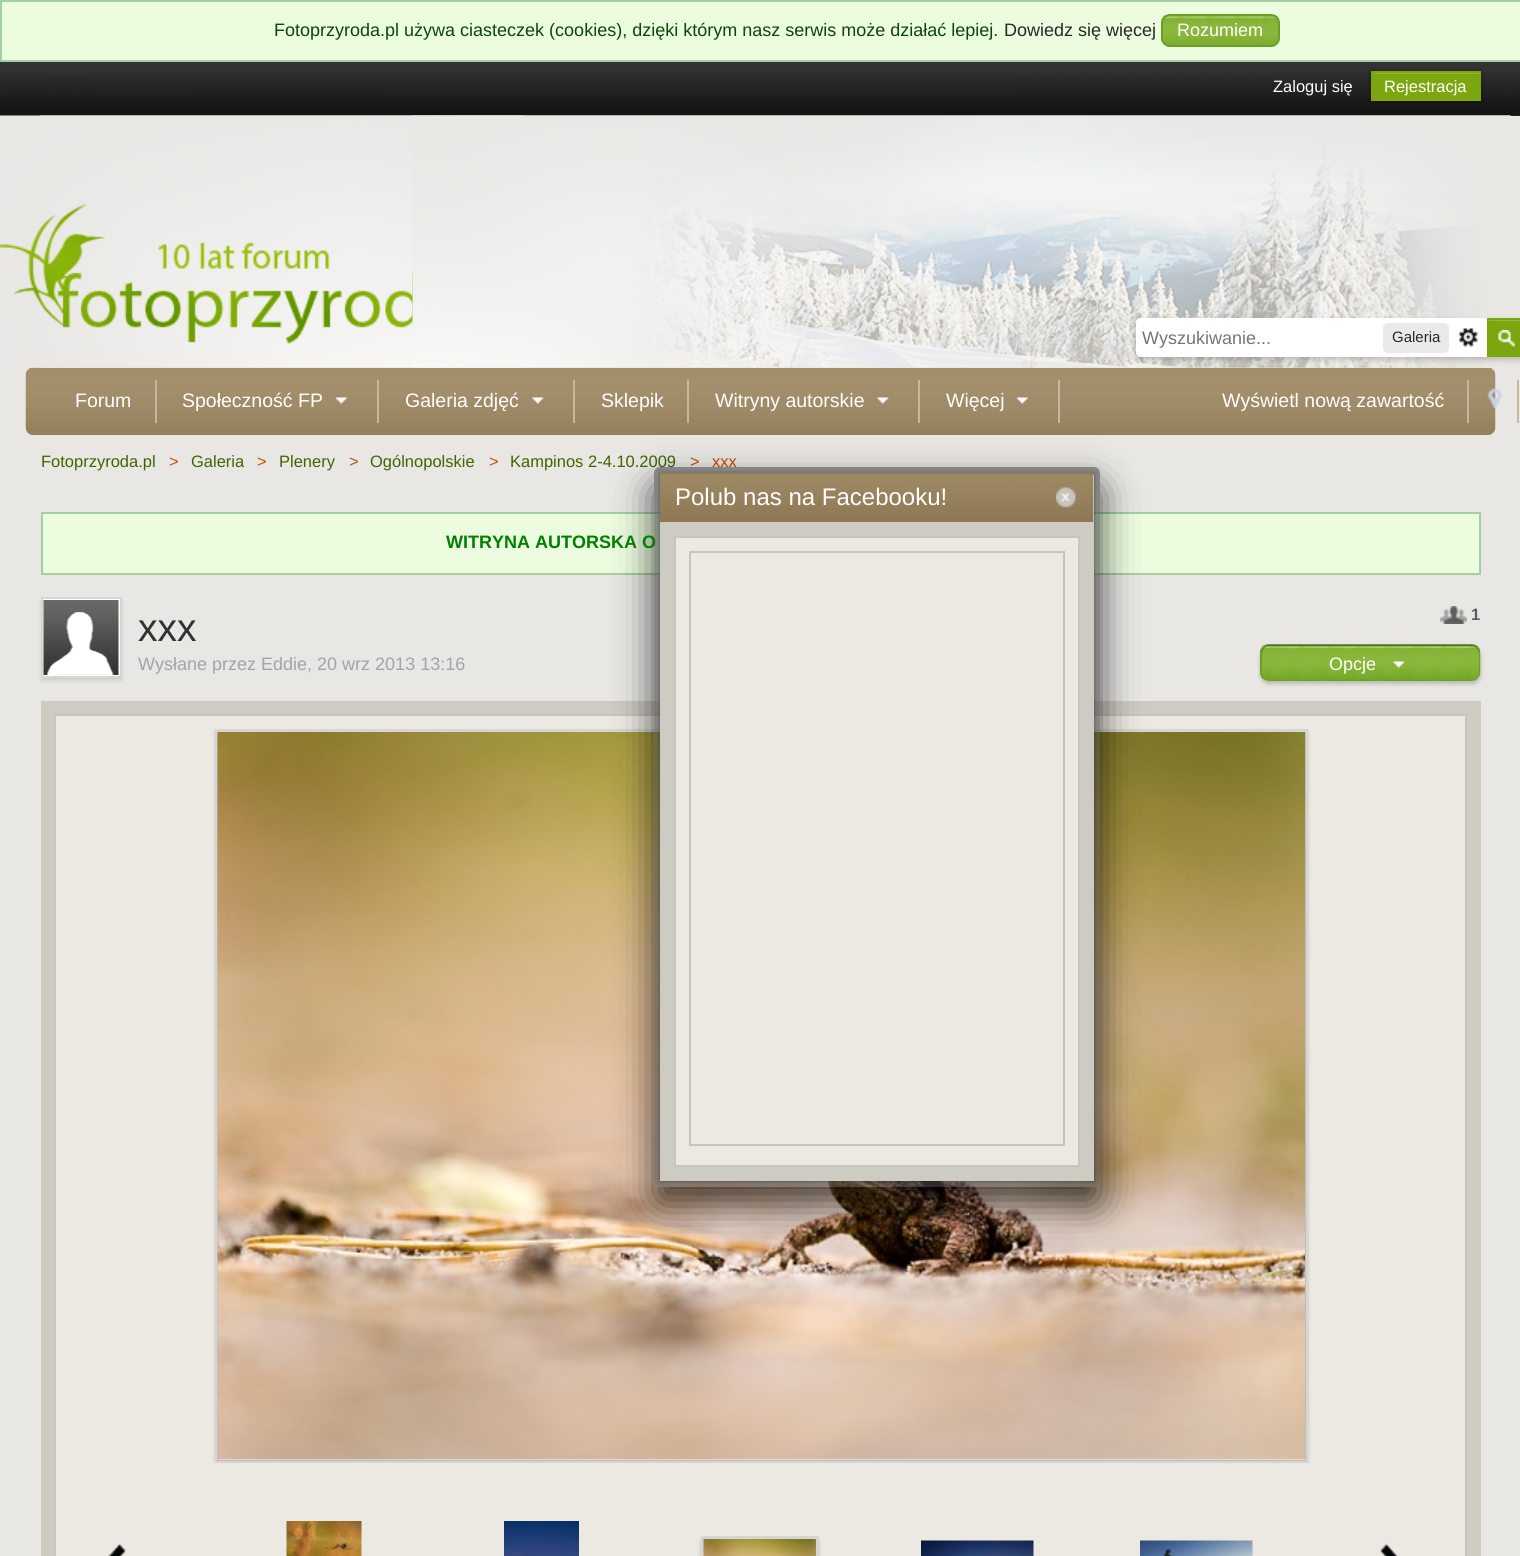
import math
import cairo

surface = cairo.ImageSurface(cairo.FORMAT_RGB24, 1520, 1556)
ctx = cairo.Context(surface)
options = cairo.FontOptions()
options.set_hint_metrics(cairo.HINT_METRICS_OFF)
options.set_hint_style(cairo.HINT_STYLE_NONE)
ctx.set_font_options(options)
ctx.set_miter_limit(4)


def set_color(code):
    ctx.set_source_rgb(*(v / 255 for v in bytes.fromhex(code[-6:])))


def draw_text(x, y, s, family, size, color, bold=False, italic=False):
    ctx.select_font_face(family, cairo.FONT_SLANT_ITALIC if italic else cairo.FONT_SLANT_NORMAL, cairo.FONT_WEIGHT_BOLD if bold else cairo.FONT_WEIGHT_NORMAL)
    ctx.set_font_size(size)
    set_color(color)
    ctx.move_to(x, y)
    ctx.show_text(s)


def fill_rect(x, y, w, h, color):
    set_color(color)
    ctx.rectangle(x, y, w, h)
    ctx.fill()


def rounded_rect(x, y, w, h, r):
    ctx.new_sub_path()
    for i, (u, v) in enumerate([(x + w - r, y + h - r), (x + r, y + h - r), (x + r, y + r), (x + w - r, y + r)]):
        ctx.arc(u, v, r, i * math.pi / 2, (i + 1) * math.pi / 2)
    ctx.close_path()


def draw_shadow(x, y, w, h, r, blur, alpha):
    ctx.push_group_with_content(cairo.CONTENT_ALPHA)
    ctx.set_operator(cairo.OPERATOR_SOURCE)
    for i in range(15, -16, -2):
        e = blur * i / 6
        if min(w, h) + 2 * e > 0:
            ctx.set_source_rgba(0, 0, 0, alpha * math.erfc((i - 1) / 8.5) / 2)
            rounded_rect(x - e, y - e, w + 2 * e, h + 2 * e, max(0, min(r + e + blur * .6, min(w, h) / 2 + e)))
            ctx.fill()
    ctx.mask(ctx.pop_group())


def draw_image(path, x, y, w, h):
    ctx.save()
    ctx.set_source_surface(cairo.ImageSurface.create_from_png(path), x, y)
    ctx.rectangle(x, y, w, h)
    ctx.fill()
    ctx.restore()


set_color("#e8e7e4")
ctx.paint()
fill_rect(0, 62, 1520, 54, "#323232")
draw_image("assets/img1.png", 0, 73, 1520, 43)
set_color("#ebfcdf")
ctx.rectangle(1, 1, 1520, 60)
ctx.fill_preserve()
set_color("#a4cfa4")
ctx.stroke()
draw_text(274, 36, "Fotoprzyroda.pl używa ciasteczek (cookies), dzięki którym nasz serwis może działać lepiej.", "Liberation Sans", 18, "#0e440e")
draw_text(1004, 36, "Dowiedz się więcej", "Liberation Sans", 18, "#282828")
draw_image("assets/img2.png", 1161, 15, 119, 32)
rounded_rect(1162, 15, 117, 31, 8)
set_color("#6a9f22")
ctx.stroke()
draw_text(1177, 36, "Rozumiem", "Liberation Sans", 18, "#ffffff")
draw_text(1273, 92, "Zaloguj się", "Liberation Sans", 16.5, "#ffffff")
set_color("#000000")
draw_shadow(1371, 72, 110, 30, 0, 3, 0.4)
fill_rect(1373, 74, 106, 25, "#7ba60d")
fill_rect(1373, 73, 106, 1, "#95b83d")
ctx.rectangle(1372, 72, 108, 28)
set_color("#7ba60d")
ctx.stroke()
draw_text(1384, 92, "Rejestracja", "Liberation Sans", 16.5, "#ffffff")
draw_image("assets/img9.png", 25, 367, 1471, 68)
draw_image("assets/img3.png", 40, 115, 1471, 253)
draw_image("assets/img4.png", 0, 115, 525, 253)
draw_image("assets/img5.png", 157, 242, 174, 27)
draw_image("assets/img6.png", 412, 115, 1099, 253)
set_color("#000000")
draw_shadow(1136, 321, 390, 39, 6, 3, 0.2)
set_color("#ffffff")
ctx.new_path()
ctx.move_to(1141, 318)
ctx.line_to(1520, 318)
ctx.curve_to(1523.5, 318, 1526, 320.5, 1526, 324)
ctx.line_to(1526, 351)
ctx.curve_to(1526, 354.5, 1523.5, 357, 1520, 357)
ctx.line_to(1141, 357)
ctx.curve_to(1138, 357, 1136, 355, 1136, 352)
ctx.line_to(1136, 323)
ctx.curve_to(1136, 320, 1138, 318, 1141, 318)
ctx.close_path()
ctx.fill()
draw_text(1142, 344, "Wyszukiwanie...", "Liberation Sans", 18, "#757575")
set_color("#eaeaea")
rounded_rect(1383, 323, 66, 30, 5)
ctx.fill()
draw_text(1392, 342, "Galeria", "Liberation Sans", 15, "#282828")
fill_rect(1489, 321, 31, 34, "#7ba60d")
draw_image("assets/img7.png", 1498, 330, 17, 17)
set_color("#95b83d")
ctx.new_path()
ctx.move_to(1488, 321)
ctx.line_to(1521, 321)
ctx.curve_to(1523, 321, 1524, 322, 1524, 324)
ctx.line_to(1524, 323)
ctx.curve_to(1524, 321.5, 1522.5, 320, 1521, 320)
ctx.line_to(1488, 320)
ctx.close_path()
ctx.fill()
ctx.rectangle(1488, 319, 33, 37)
set_color("#7ba60d")
ctx.stroke()
draw_image("assets/img8.png", 1459, 328, 19, 19)
fill_rect(155, 380, 2, 43, "#c6b89c")
draw_text(75, 407, "Forum", "Liberation Sans", 19.5, "#ffffff")
fill_rect(377, 380, 2, 43, "#c6b89c")
draw_text(182, 407, "Społeczność FP", "Liberation Sans", 19.5, "#ffffff")
draw_image("assets/img10.png", 335, 397, 12, 7)
fill_rect(573, 380, 2, 43, "#c6b89c")
draw_text(405, 407, "Galeria zdjęć", "Liberation Sans", 19.5, "#ffffff")
draw_image("assets/img11.png", 532, 397, 12, 7)
fill_rect(687, 380, 2, 43, "#c6b89c")
draw_text(601, 407, "Sklepik", "Liberation Sans", 19.5, "#ffffff")
fill_rect(918, 380, 2, 43, "#c6b89c")
draw_text(715, 407, "Witryny autorskie", "Liberation Sans", 19.5, "#ffffff")
draw_image("assets/img12.png", 877, 397, 12, 7)
fill_rect(1058, 380, 2, 43, "#c6b89c")
draw_text(946, 407, "Więcej", "Liberation Sans", 19.5, "#ffffff")
draw_image("assets/img10.png", 1016, 397, 12, 7)
fill_rect(1467, 380, 2, 43, "#c6b89c")
draw_text(1222, 407, "Wyświetl nową zawartość", "Liberation Sans", 19.5, "#ffffff")
fill_rect(1517, 380, 2, 43, "#c6b89c")
draw_image("assets/img13.png", 1487, 388, 15, 20)
draw_text(41, 467, "Fotoprzyroda.pl", "Liberation Sans", 16.5, "#406500")
draw_text(169, 467, ">", "Liberation Sans", 16.5, "#c75000")
draw_text(191, 467, "Galeria", "Liberation Sans", 16.5, "#406500")
draw_text(257, 467, ">", "Liberation Sans", 16.5, "#c75000")
draw_text(279, 467, "Plenery", "Liberation Sans", 16.5, "#406500")
draw_text(349, 467, ">", "Liberation Sans", 16.5, "#c75000")
draw_text(370, 467, "Ogólnopolskie", "Liberation Sans", 16.5, "#406500")
draw_text(489, 467, ">", "Liberation Sans", 16.5, "#c75000")
draw_text(510, 467, "Kampinos 2-4.10.2009", "Liberation Sans", 16.5, "#406500")
draw_text(690, 467, ">", "Liberation Sans", 16.5, "#c75000")
draw_text(712, 467, "xxx", "Liberation Sans", 16.5, "#c75000")
set_color("#ebfcdf")
ctx.rectangle(42, 513, 1438, 61)
ctx.fill_preserve()
set_color("#a4cfa4")
ctx.stroke()
fill_rect(41, 701, 1440, 855, "#cecbc2")
set_color("#ece9e2")
ctx.rectangle(55, 715, 1411, 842)
ctx.fill_preserve()
set_color("#c8c5bc")
ctx.stroke()
ctx.save()
ctx.rectangle(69, 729, 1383, 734)
ctx.clip()
set_color("#000000")
draw_shadow(215, 732, 1093, 734, 0, 1.5, 0.2)
ctx.restore()
ctx.rectangle(216, 730, 1091, 732)
set_color("#d5d5d5")
ctx.stroke()
fill_rect(218, 1459, 1087, 1, "#ffffff")
draw_image("assets/img20.png", 217, 732, 1088, 728)
ctx.save()
ctx.set_fill_rule(cairo.FILL_RULE_EVEN_ODD)
ctx.new_path()
ctx.move_to(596, 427)
ctx.line_to(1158, 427)
ctx.line_to(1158, 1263)
ctx.line_to(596, 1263)
ctx.close_path()
ctx.move_to(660, 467)
ctx.line_to(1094, 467)
ctx.curve_to(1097.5, 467, 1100, 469.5, 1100, 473)
ctx.line_to(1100, 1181)
ctx.curve_to(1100, 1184.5, 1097.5, 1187, 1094, 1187)
ctx.line_to(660, 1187)
ctx.curve_to(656.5, 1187, 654, 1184.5, 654, 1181)
ctx.line_to(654, 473)
ctx.curve_to(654, 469.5, 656.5, 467, 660, 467)
ctx.close_path()
ctx.clip()
set_color("#000000")
draw_shadow(654, 485, 446, 720, 6, 19, 0.7)
ctx.restore()
draw_text(446, 548, "WITRYNA AUTORSKA O", "Liberation Sans", 18, "#008000", bold=True)
ctx.set_source_rgba(0.275, 0.275, 0.275, 0.6)
rounded_rect(654, 467, 446, 720, 6)
ctx.fill()
set_color("#000000")
draw_shadow(660, 473, 434, 708, 0, 2, 0.4)
fill_rect(1093, 475, 1, 47, "#ffffff")
draw_image("assets/img14.png", 660, 472, 434, 50)
fill_rect(660, 473, 434, 2, "#98825e")
draw_text(675, 505, "Polub nas na Facebooku!", "Liberation Sans", 24, "#ffffff")
fill_rect(660, 522, 434, 659, "#cecbc2")
set_color("#ece9e2")
ctx.rectangle(675, 537, 404, 629)
ctx.fill_preserve()
set_color("#c8c5bc")
ctx.stroke()
ctx.rectangle(690, 552, 374, 593)
ctx.stroke()
draw_image("assets/img15.png", 1056, 487, 20, 21)
set_color("#000000")
draw_shadow(41, 600, 81, 81, 0, 1.5, 0.1)
set_color("#ffffff")
ctx.rectangle(42, 598, 79, 79)
ctx.fill_preserve()
set_color("#d5d5d5")
ctx.stroke()
draw_image("assets/img16.png", 43, 600, 76, 75)
draw_text(138, 641, "xxx", "Liberation Sans", 39, "#323232")
draw_text(138, 670, "Wysłane przez Eddie, 20 wrz 2013 13:16", "Liberation Sans", 18, "#a4a4a4")
draw_image("assets/img17.png", 1440, 606, 27, 18)
draw_text(1471, 620, "1", "Liberation Sans", 16.5, "#5c5c5c", bold=True)
set_color("#000000")
draw_shadow(1260, 647, 221, 37, 9, 2, 0.2)
draw_image("assets/img18.png", 1260, 645, 221, 36)
set_color("#5c5c5c")
ctx.new_path()
ctx.move_to(1269, 646)
ctx.line_to(1472, 646)
ctx.curve_to(1476, 646, 1479, 650, 1479, 654)
ctx.line_to(1479, 652)
ctx.curve_to(1479, 648, 1476, 645, 1472, 645)
ctx.line_to(1269, 645)
ctx.curve_to(1265, 645, 1262, 648, 1262, 652)
ctx.line_to(1262, 672)
ctx.line_to(1262, 676)
ctx.line_to(1262, 664)
ctx.curve_to(1262, 659, 1260, 646, 1269, 646)
ctx.close_path()
ctx.fill()
set_color("#6a9f22")
ctx.set_fill_rule(cairo.FILL_RULE_EVEN_ODD)
ctx.new_path()
ctx.move_to(1269, 644)
ctx.line_to(1472, 644)
ctx.curve_to(1476, 644, 1480, 648, 1480, 652)
ctx.line_to(1480, 672)
ctx.curve_to(1480, 677, 1476, 681, 1472, 681)
ctx.line_to(1269, 681)
ctx.curve_to(1264, 681, 1260, 677, 1260, 672)
ctx.line_to(1260, 652)
ctx.curve_to(1260, 648, 1264, 644, 1269, 644)
ctx.close_path()
ctx.move_to(1269, 645)
ctx.line_to(1472, 645)
ctx.curve_to(1476, 645, 1479, 648, 1479, 652)
ctx.line_to(1479, 672)
ctx.curve_to(1479, 677, 1476, 681, 1472, 681)
ctx.line_to(1269, 681)
ctx.curve_to(1265, 681, 1262, 677, 1262, 672)
ctx.line_to(1262, 652)
ctx.curve_to(1262, 648, 1265, 645, 1269, 645)
ctx.close_path()
ctx.fill()
draw_text(1329, 670, "Opcje", "Liberation Sans", 18, "#ffffff")
draw_image("assets/img19.png", 1393, 661, 12, 7)
draw_image("assets/img21.png", 108, 1543, 19, 13)
draw_image("assets/img22.png", 286, 1521, 76, 35)
draw_image("assets/img23.png", 504, 1521, 75, 35)
set_color("#000000")
draw_shadow(701, 1541, 118, 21, 0, 2, 0.2)
ctx.rectangle(702.5, 1537.5, 115, 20)
set_color("#d5d5d5")
ctx.set_line_width(3)
ctx.stroke()
draw_image("assets/img24.png", 703, 1539, 113, 17)
draw_image("assets/img25.png", 921, 1540, 113, 16)
draw_image("assets/img26.png", 1140, 1540, 113, 16)
draw_image("assets/img27.png", 1379, 1543, 20, 13)
surface.write_to_png("output.png")
